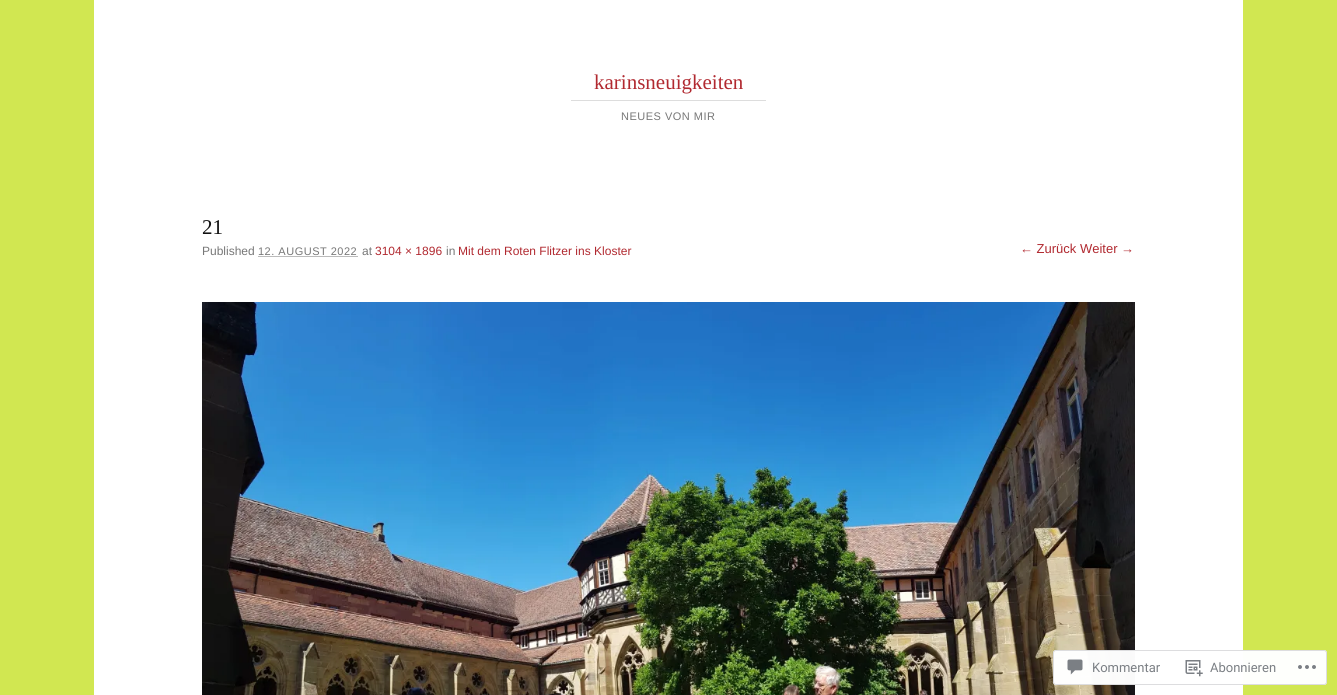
import math
import cairo

surface = cairo.ImageSurface(cairo.FORMAT_RGB24, 1337, 695)
ctx = cairo.Context(surface)
options = cairo.FontOptions()
options.set_hint_metrics(cairo.HINT_METRICS_OFF)
options.set_hint_style(cairo.HINT_STYLE_NONE)
ctx.set_font_options(options)
ctx.set_miter_limit(4)


def set_color(code):
    ctx.set_source_rgb(*(v / 255 for v in bytes.fromhex(code[-6:])))


def draw_text(x, y, s, family, size, color, bold=False, italic=False):
    ctx.select_font_face(family, cairo.FONT_SLANT_ITALIC if italic else cairo.FONT_SLANT_NORMAL, cairo.FONT_WEIGHT_BOLD if bold else cairo.FONT_WEIGHT_NORMAL)
    ctx.set_font_size(size)
    set_color(color)
    ctx.move_to(x, y)
    ctx.show_text(s)


def draw_spaced(x, y, s, letter, word):
    ctx.move_to(x, y)
    for ch in s:
        ctx.show_text(ch)
        ctx.rel_move_to(letter + word * (ch == ' '), 0)


def fill_rect(x, y, w, h, color):
    set_color(color)
    ctx.rectangle(x, y, w, h)
    ctx.fill()


def rounded_rect(x, y, w, h, r):
    ctx.new_sub_path()
    for i, (u, v) in enumerate([(x + w - r, y + h - r), (x + r, y + h - r), (x + r, y + r), (x + w - r, y + r)]):
        ctx.arc(u, v, r, i * math.pi / 2, (i + 1) * math.pi / 2)
    ctx.close_path()


def draw_image(path, x, y, w, h):
    ctx.save()
    ctx.set_source_surface(cairo.ImageSurface.create_from_png(path), x, y)
    ctx.rectangle(x, y, w, h)
    ctx.fill()
    ctx.restore()


set_color("#d1e751")
ctx.paint()
fill_rect(94, 0, 1149, 695, "#ffffff")
fill_rect(571, 100, 195, 1, "#dddddd")
draw_text(594, 89, "karinsneuigkeiten", "Liberation Serif", 21, "#b12930")
ctx.select_font_face("Liberation Sans")
ctx.set_font_size(11)
set_color("#777777")
draw_spaced(621, 120, "NEUES VON MIR", 0.5, 0)
draw_text(202, 234, "21", "Liberation Serif", 21, "#111111")
draw_text(202, 255, "Published", "Liberation Sans", 12, "#777777")
ctx.set_font_size(11)
draw_spaced(258, 255, "12. AUGUST 2022", 0.5, 0)
ctx.new_path()
ctx.move_to(258.5, 256.5)
ctx.line_to(358.5, 256.5)
ctx.set_line_width(1)
ctx.set_dash([1, 1])
ctx.stroke()
draw_text(362, 255, "at", "Liberation Sans", 12, "#777777")
draw_text(375, 255, "3104 × 1896", "Liberation Sans", 12, "#b12930")
draw_text(446, 255, "in", "Liberation Sans", 12, "#777777")
draw_text(458, 255, "Mit dem Roten Flitzer ins Kloster", "Liberation Sans", 12, "#b12930")
draw_text(1020, 253, "← Zurück Weiter →", "Liberation Sans", 13, "#b12930")
draw_image("assets/img1.png", 202, 302, 933, 393)
ctx.set_source_rgba(1, 1, 1, 0.98)
rounded_rect(1053, 650, 274, 35, 3)
ctx.fill()
rounded_rect(1053.5, 650.5, 273, 34, 2.5)
ctx.set_source_rgba(0.863, 0.863, 0.871, 0.98)
ctx.set_dash([])
ctx.stroke()
draw_image("assets/img2.png", 1067, 659, 16, 16)
draw_text(1092, 672, "Kommentar", "Roboto", 13, "#7b7f84")
draw_image("assets/img3.png", 1185, 660, 18, 17)
draw_text(1210, 672, "Abonnieren", "Roboto", 13, "#7b7f84")
draw_image("assets/img4.png", 1298, 665, 18, 4)
surface.write_to_png("output.png")
